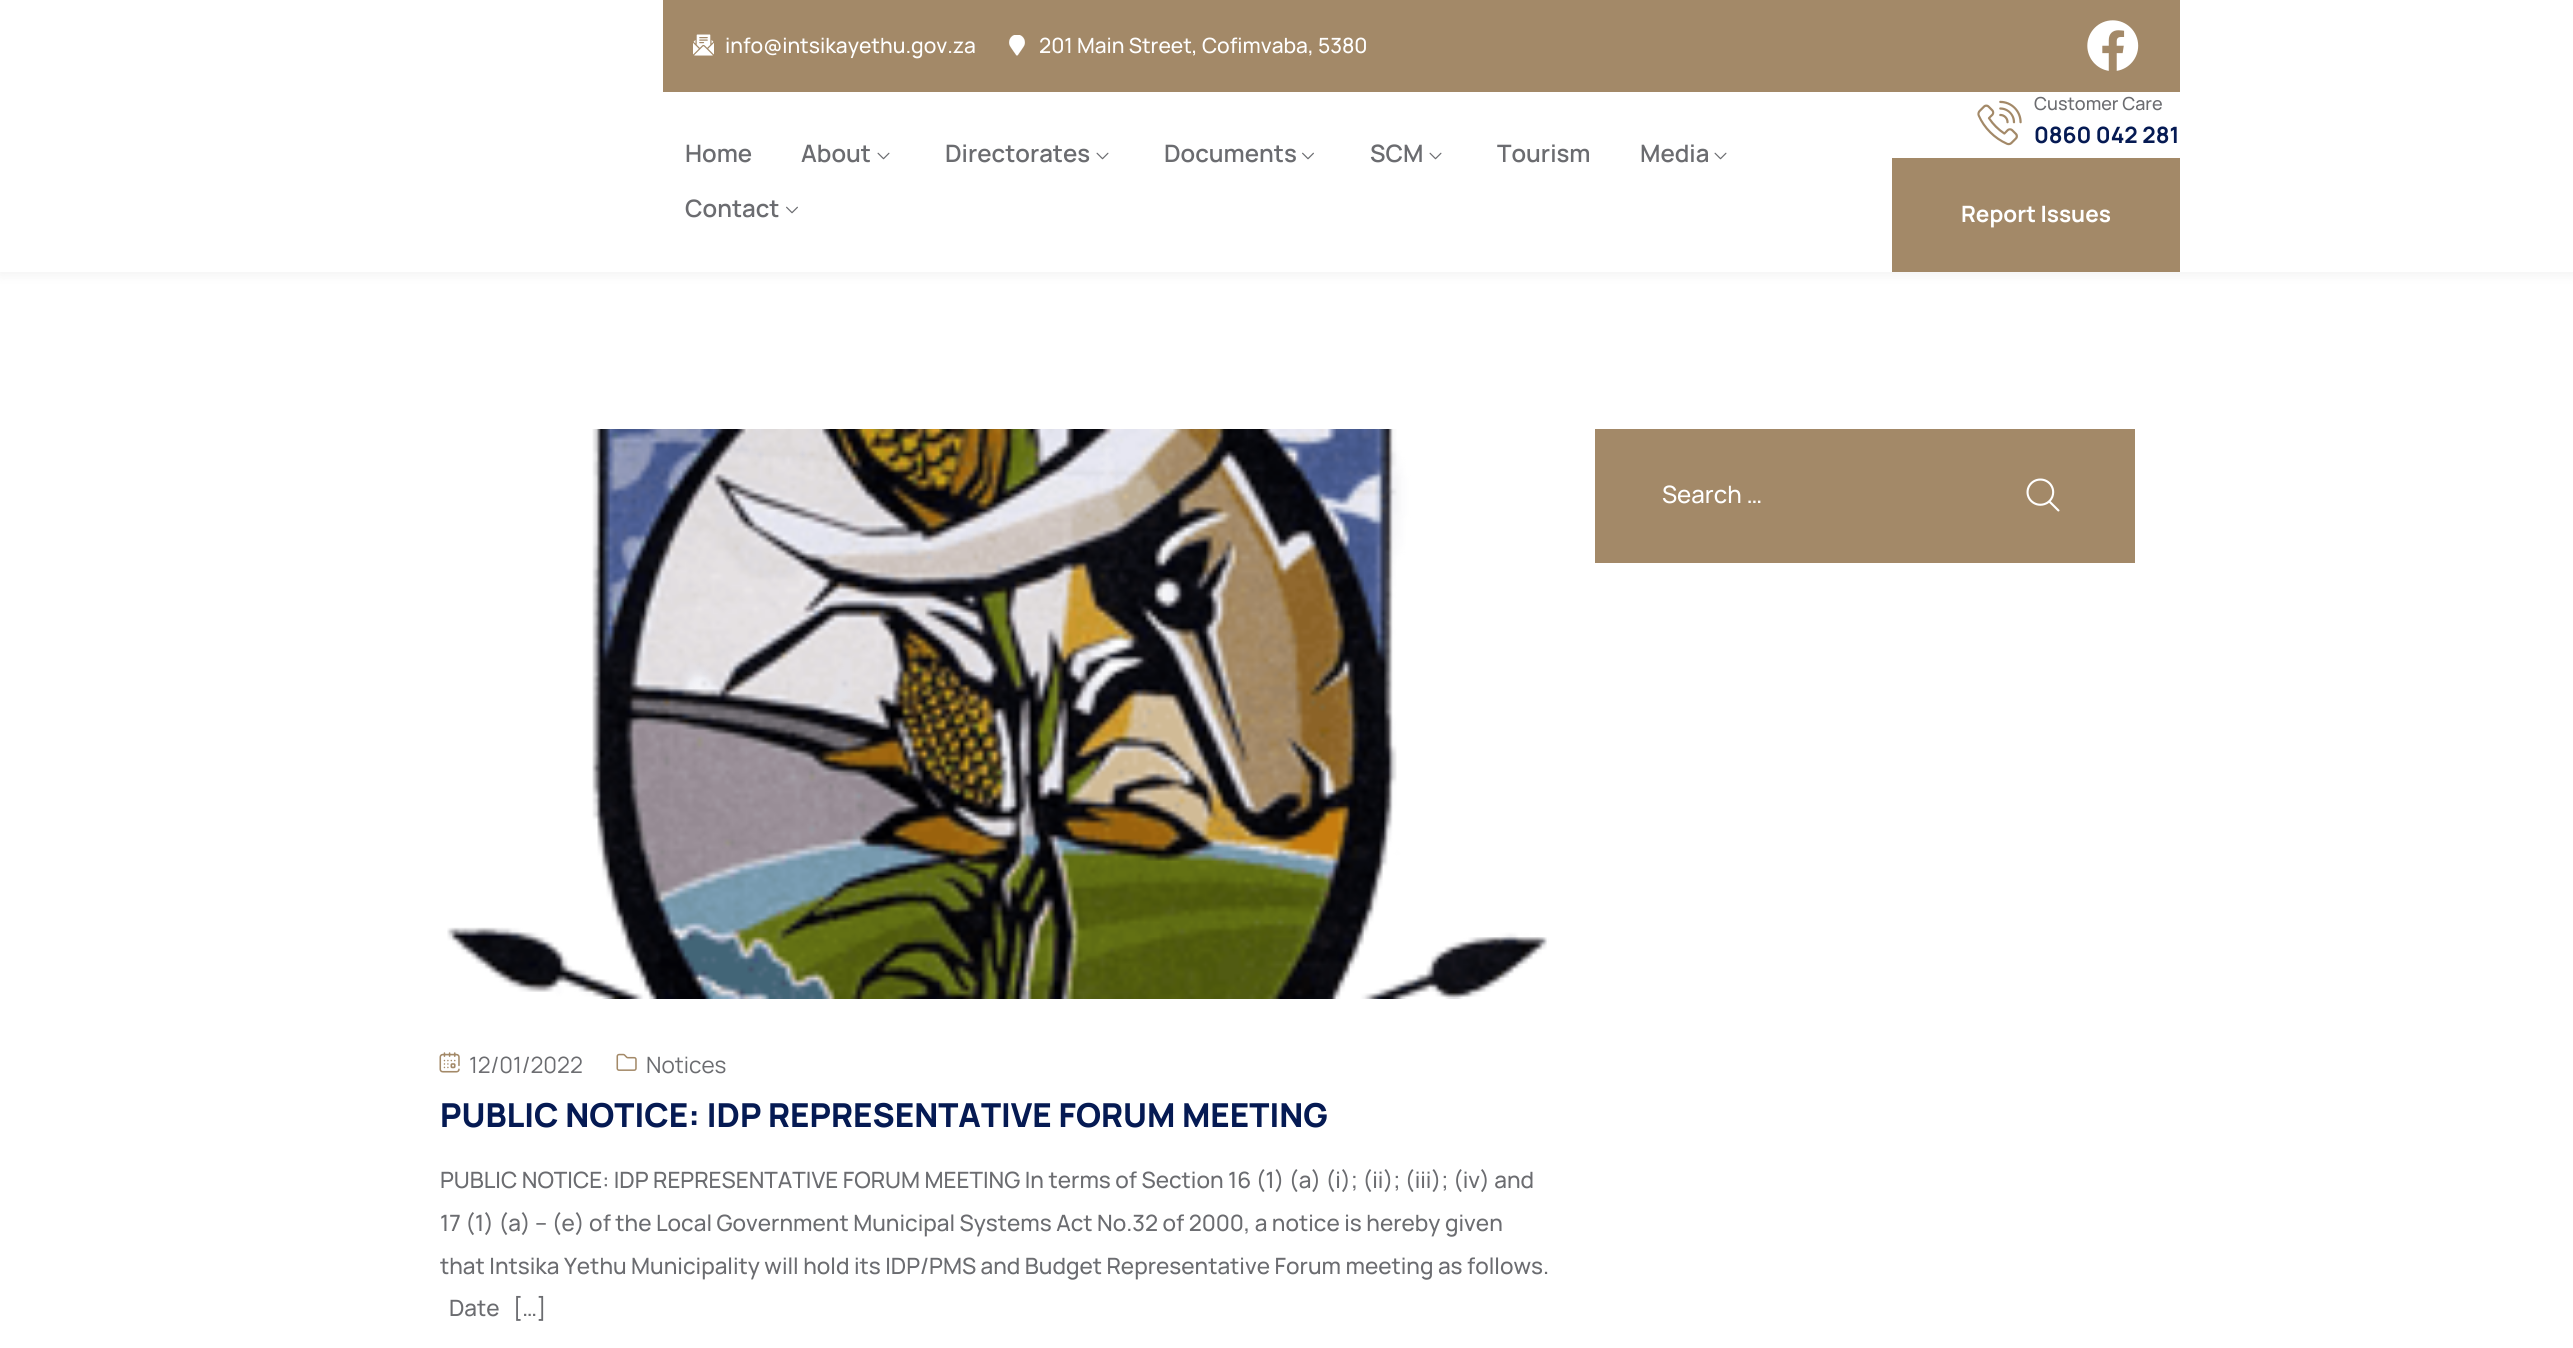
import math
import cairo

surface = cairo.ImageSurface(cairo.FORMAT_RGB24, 2573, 1348)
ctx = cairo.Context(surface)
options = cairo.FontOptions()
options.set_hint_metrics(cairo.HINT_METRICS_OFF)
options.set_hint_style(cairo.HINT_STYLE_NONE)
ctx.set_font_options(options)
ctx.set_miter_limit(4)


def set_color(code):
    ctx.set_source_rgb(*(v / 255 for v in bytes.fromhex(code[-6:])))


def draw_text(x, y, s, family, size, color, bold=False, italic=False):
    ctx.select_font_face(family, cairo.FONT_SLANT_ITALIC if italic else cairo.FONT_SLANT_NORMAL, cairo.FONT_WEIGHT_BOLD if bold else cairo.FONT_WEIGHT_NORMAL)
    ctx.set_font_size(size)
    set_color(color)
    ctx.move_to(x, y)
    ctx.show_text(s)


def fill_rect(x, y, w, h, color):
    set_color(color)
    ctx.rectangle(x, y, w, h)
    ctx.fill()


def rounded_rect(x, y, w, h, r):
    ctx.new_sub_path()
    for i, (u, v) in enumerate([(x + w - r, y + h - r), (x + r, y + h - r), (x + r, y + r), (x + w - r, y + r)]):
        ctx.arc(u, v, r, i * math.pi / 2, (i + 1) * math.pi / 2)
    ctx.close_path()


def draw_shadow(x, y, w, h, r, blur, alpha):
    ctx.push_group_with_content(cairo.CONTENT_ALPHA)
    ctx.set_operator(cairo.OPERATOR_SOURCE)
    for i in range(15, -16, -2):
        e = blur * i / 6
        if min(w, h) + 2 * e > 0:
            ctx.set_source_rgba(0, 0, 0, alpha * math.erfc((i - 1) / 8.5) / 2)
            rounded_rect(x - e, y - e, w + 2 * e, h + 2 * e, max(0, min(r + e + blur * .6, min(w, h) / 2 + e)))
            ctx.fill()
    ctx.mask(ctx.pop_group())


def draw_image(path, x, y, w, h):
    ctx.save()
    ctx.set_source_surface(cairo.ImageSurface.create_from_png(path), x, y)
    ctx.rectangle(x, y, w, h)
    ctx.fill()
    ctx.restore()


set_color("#ffffff")
ctx.paint()
set_color("#000000")
draw_shadow(0, 2, 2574, 271, 0, 7.5, 0.07)
fill_rect(0, 0, 2573, 272, "#ffffff")
fill_rect(663, 0, 1517, 92, "#a38968")
draw_image("assets/img1.png", 693, 34, 21, 22)
draw_text(725, 53, "info@intsikayethu.gov.za", "Manrope Medium", 21, "#ffffff")
draw_image("assets/img2.png", 1009, 35, 16, 21)
draw_text(1039, 53, "201 Main Street, Cofimvaba, 5380", "Manrope Medium", 21, "#ffffff")
draw_image("assets/img3.png", 2087, 20, 52, 51)
draw_text(685, 162, "Home", "Manrope SemiBold", 24, "#6b6c70")
draw_text(801, 162, "About", "Manrope SemiBold", 24, "#6b6c70")
draw_image("assets/img4.png", 877, 152, 13, 8)
draw_text(945, 162, "Directorates", "Manrope SemiBold", 24, "#6b6c70")
draw_image("assets/img4.png", 1096, 152, 13, 8)
draw_text(1164, 162, "Documents", "Manrope SemiBold", 24, "#6b6c70")
draw_image("assets/img5.png", 1302, 152, 12, 8)
draw_text(1370, 162, "SCM", "Manrope SemiBold", 24, "#6b6c70")
draw_image("assets/img4.png", 1429, 152, 13, 8)
draw_text(1497, 162, "Tourism", "Manrope SemiBold", 24, "#6b6c70")
draw_text(1640, 162, "Media", "Manrope SemiBold", 24, "#6b6c70")
draw_image("assets/img4.png", 1714, 152, 13, 8)
draw_text(685, 217, "Contact", "Manrope SemiBold", 24, "#6b6c70")
draw_image("assets/img5.png", 786, 206, 12, 8)
draw_image("assets/img6.png", 1977, 100, 45, 46)
draw_text(2034, 110, "Customer Care", "Manrope Medium", 18, "#6b6c70")
draw_text(2034, 143, "0860 042 281", "Manrope", 22.5, "#051a53", bold=True)
fill_rect(1892, 158, 288, 114, "#a38968")
draw_text(1961, 222, "Report Issues", "Manrope", 22.5, "#ffffff", bold=True)
fill_rect(1595, 429, 540, 134, "#a38968")
draw_text(1662, 503, "Search …", "Manrope Medium", 24, "#ffffff")
draw_image("assets/img7.png", 2026, 478, 34, 34)
draw_image("assets/img8.png", 447, 429, 1102, 570)
draw_image("assets/img9.png", 439, 1052, 21, 21)
draw_text(469, 1073, "12/01/2022", "Manrope", 22.5, "#6b6c70")
draw_image("assets/img10.png", 616, 1053, 21, 18)
draw_text(646, 1073, "Notices", "Manrope", 22.5, "#6b6c70")
draw_text(440, 1127, "PUBLIC NOTICE: IDP REPRESENTATIVE FORUM MEETING", "Manrope ExtraBold", 33, "#051a53")
draw_text(440, 1188, "PUBLIC NOTICE: IDP REPRESENTATIVE FORUM MEETING In terms of Section 16 (1) (a) (i); (ii); (iii); (iv) and", "Manrope Medium", 22.5, "#6b6c70")
draw_text(440, 1231, "17 (1) (a) – (e) of the Local Government Municipal Systems Act No.32 of 2000, a notice is hereby given", "Manrope Medium", 22.5, "#6b6c70")
draw_text(440, 1274, "that Intsika Yethu Municipality will hold its IDP/PMS and Budget Representative Forum meeting as follows.", "Manrope Medium", 22.5, "#6b6c70")
draw_text(449, 1316, "Date   […]", "Manrope Medium", 22.5, "#6b6c70")
surface.write_to_png("output.png")
